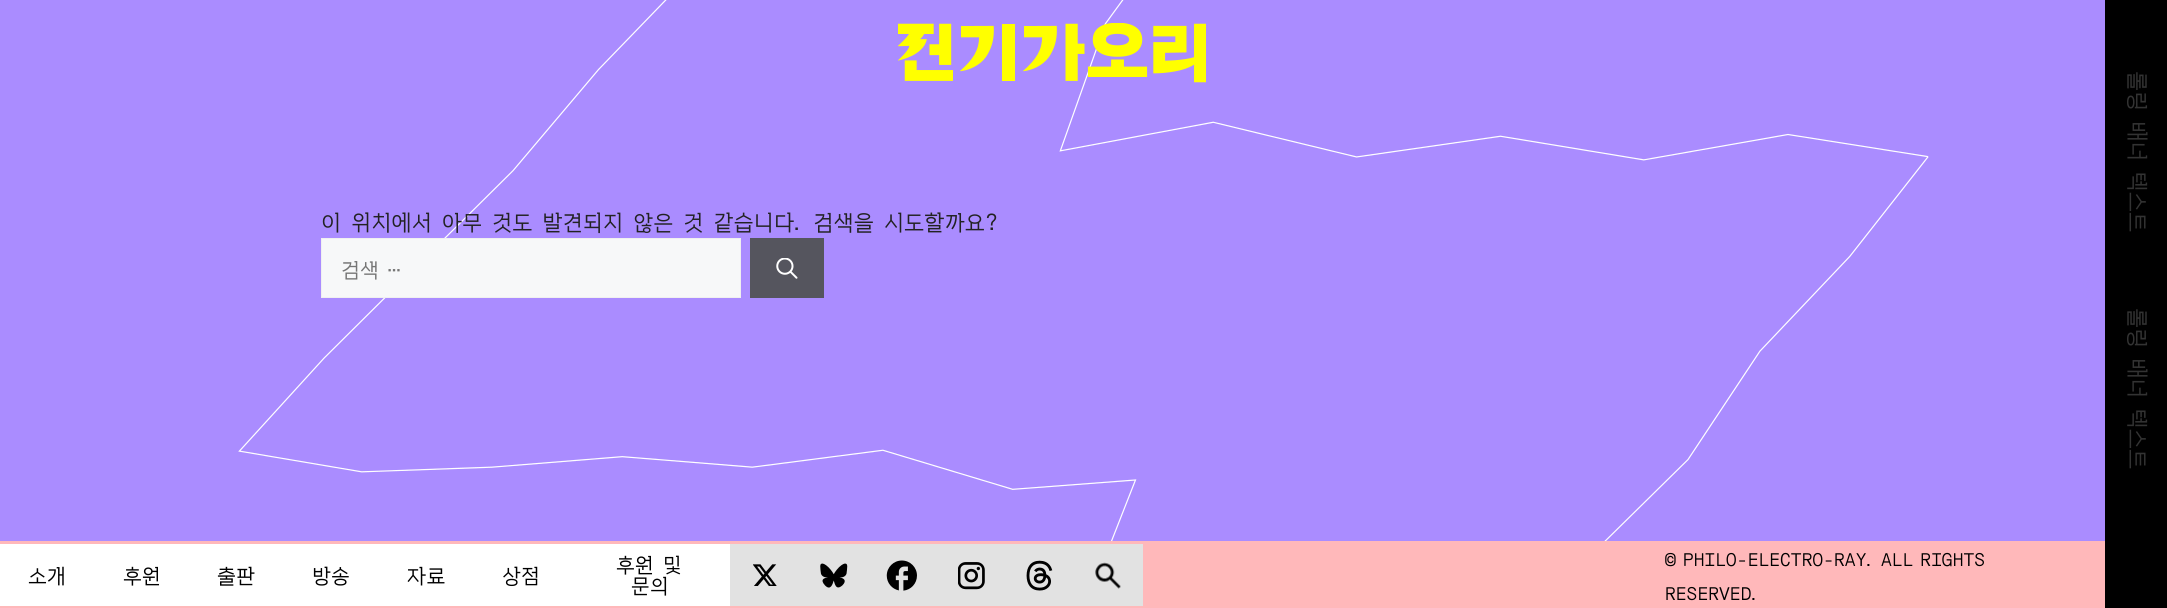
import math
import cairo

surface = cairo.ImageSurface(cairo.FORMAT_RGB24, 2167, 608)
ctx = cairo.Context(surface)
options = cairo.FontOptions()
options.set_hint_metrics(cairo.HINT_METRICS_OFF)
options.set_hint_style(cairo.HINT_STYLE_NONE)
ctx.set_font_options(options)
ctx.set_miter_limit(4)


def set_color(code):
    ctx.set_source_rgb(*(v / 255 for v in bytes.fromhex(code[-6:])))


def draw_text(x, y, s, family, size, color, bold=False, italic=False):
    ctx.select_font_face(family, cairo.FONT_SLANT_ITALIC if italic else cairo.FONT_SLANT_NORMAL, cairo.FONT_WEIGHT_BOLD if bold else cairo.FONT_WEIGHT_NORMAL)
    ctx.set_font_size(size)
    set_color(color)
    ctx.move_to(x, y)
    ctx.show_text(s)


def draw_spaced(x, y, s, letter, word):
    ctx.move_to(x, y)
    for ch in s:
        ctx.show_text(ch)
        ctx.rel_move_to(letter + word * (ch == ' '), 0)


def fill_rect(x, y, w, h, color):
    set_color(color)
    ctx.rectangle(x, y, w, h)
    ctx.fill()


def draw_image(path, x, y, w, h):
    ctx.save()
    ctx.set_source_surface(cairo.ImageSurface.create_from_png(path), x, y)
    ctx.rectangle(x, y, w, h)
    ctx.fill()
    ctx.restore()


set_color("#aa8cff")
ctx.paint()
draw_image("assets/img1.png", 238, 0, 1691, 541)
draw_image("assets/img2.png", 898, 23, 308, 60)
ctx.select_font_face("Orbit")
ctx.set_font_size(22.5)
set_color("#222222")
draw_spaced(321, 230, "이 위치에서 아무 것도 발견되지 않은 것 같습니다. 검색을 시도할까요?", 0, -3.75)
set_color("#f7f8f9")
ctx.rectangle(321.5, 238.5, 419, 59)
ctx.fill_preserve()
set_color("#f0f0f0")
ctx.set_line_width(1)
ctx.stroke()
ctx.set_font_size(21)
set_color("#757575")
draw_spaced(341, 277, "검색 …", 0, -3.75)
fill_rect(750, 238, 74, 60, "#55555e")
draw_image("assets/img3.png", 776, 258, 22, 21)
fill_rect(2105, 0, 62, 608, "#000000")
ctx.set_font_size(22.5)
set_color("#333333")
ctx.save()
ctx.translate(2130, 71)
ctx.rotate(90 * math.pi / 180)
draw_spaced(0, 0, "롤링 배너 텍스트", 0, -3.75)
ctx.restore()
ctx.save()
ctx.translate(2130, 308)
ctx.rotate(90 * math.pi / 180)
draw_spaced(0, 0, "롤링 배너 텍스트", 0, -3.75)
ctx.restore()
fill_rect(0, 541, 2105, 67, "#ffb8ba")
fill_rect(0, 544, 730, 62, "#ffffff")
draw_text(28, 583, "소개", "Orbit", 21, "#000000")
draw_text(123, 583, "후원", "Orbit", 21, "#000000")
draw_text(217, 583, "출판", "Orbit", 21, "#000000")
draw_text(312, 583, "방송", "Orbit", 21, "#000000")
draw_text(406, 583, "자료", "Orbit", 21, "#000000")
draw_text(502, 583, "상점", "Orbit", 21, "#000000")
draw_spaced(616, 572, "후원 및", 0, -3.75)
draw_text(631, 593, "문의", "Orbit", 21, "#000000")
fill_rect(730, 544, 413, 62, "#e2e2e2")
draw_image("assets/img4.png", 753, 564, 24, 22)
draw_image("assets/img5.png", 820, 563, 28, 25)
draw_image("assets/img6.png", 886, 560, 31, 31)
draw_image("assets/img7.png", 958, 562, 27, 28)
draw_image("assets/img8.png", 1026, 560, 27, 31)
draw_image("assets/img9.png", 1095, 562, 26, 27)
ctx.set_font_size(18)
set_color("#000000")
draw_spaced(1665, 566, "© PHILO-ELECTRO-RAY. ALL RIGHTS", 0, -3.75)
draw_text(1665, 600, "RESERVED.", "Orbit", 18, "#000000")
surface.write_to_png("output.png")
